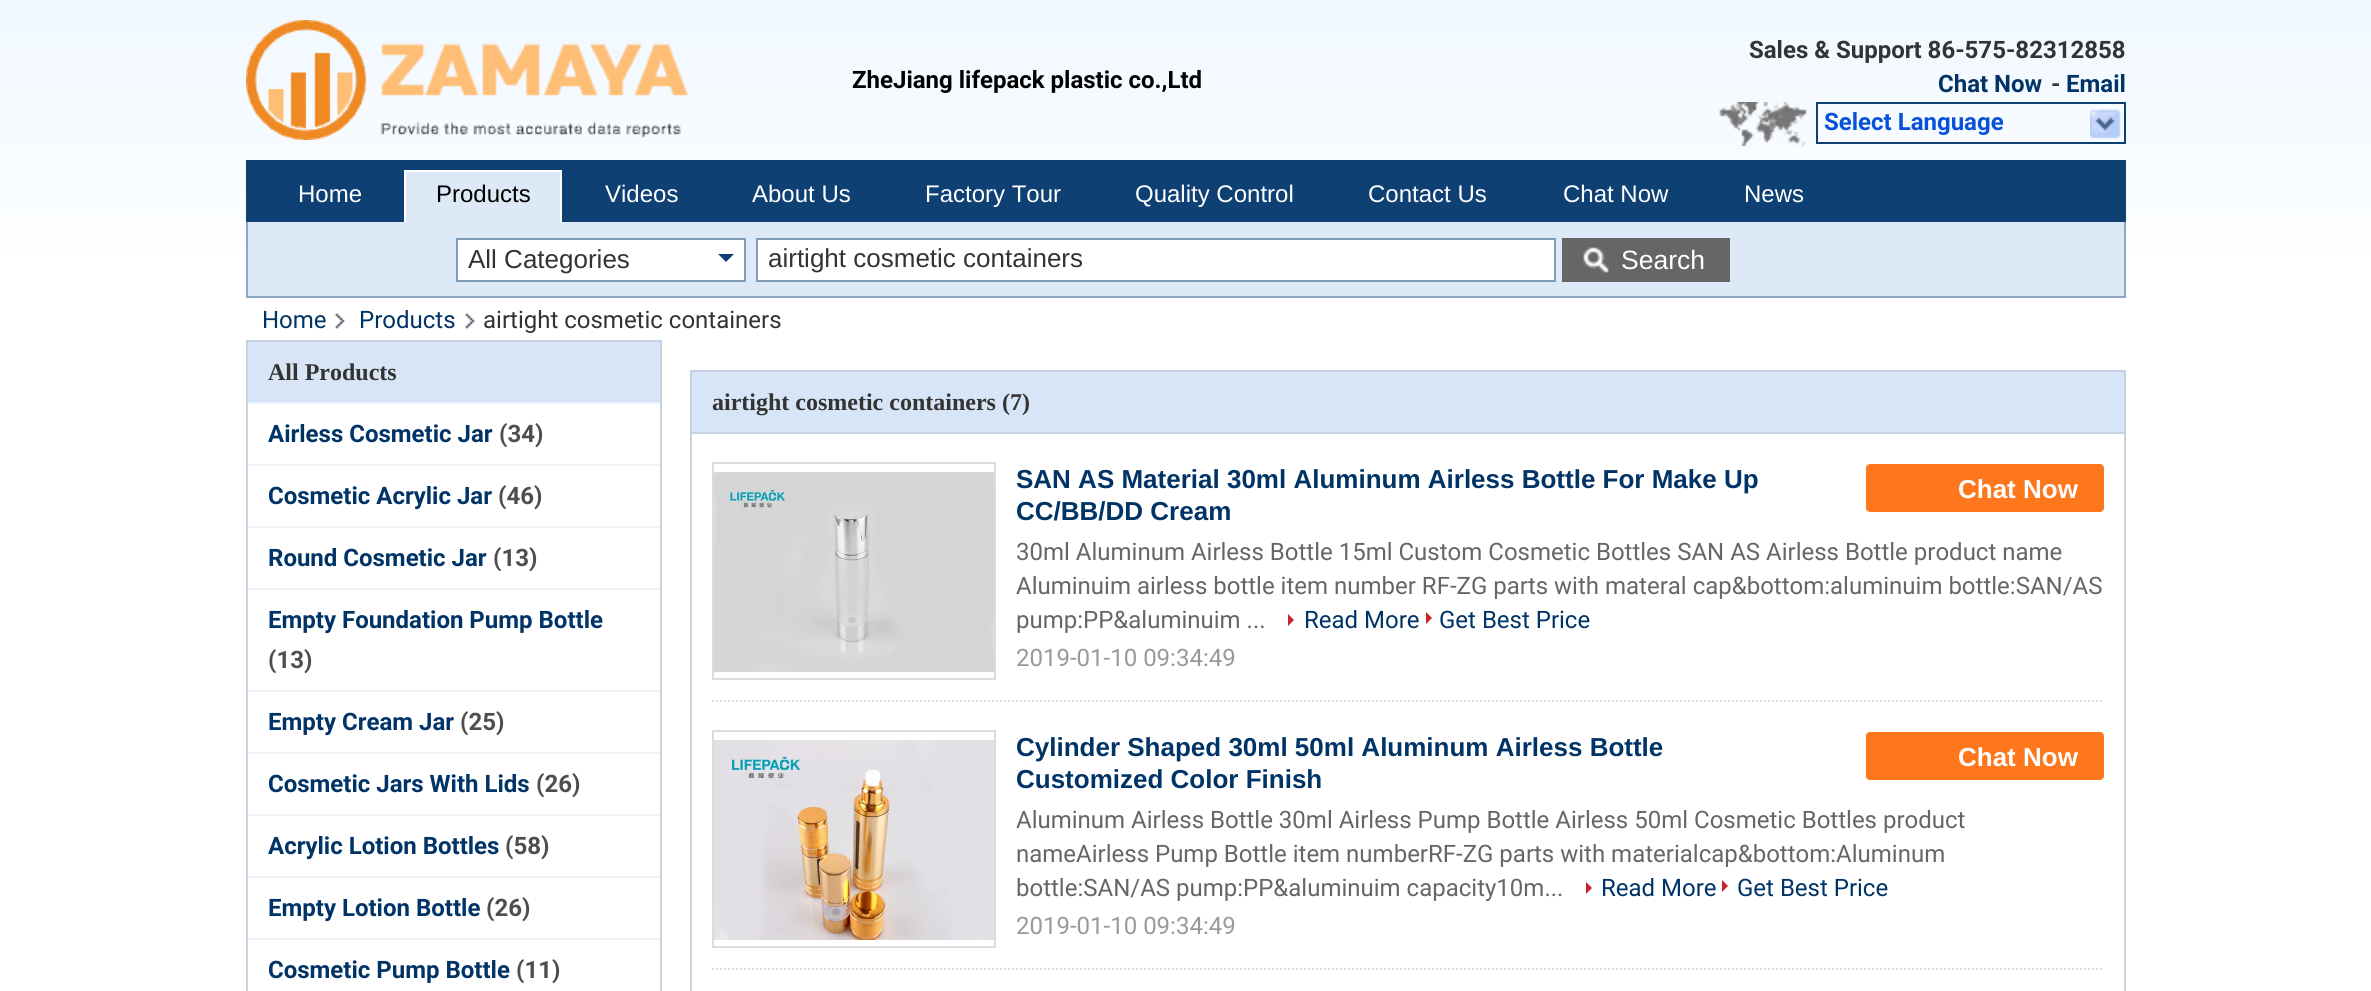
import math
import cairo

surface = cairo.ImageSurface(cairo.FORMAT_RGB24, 2371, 991)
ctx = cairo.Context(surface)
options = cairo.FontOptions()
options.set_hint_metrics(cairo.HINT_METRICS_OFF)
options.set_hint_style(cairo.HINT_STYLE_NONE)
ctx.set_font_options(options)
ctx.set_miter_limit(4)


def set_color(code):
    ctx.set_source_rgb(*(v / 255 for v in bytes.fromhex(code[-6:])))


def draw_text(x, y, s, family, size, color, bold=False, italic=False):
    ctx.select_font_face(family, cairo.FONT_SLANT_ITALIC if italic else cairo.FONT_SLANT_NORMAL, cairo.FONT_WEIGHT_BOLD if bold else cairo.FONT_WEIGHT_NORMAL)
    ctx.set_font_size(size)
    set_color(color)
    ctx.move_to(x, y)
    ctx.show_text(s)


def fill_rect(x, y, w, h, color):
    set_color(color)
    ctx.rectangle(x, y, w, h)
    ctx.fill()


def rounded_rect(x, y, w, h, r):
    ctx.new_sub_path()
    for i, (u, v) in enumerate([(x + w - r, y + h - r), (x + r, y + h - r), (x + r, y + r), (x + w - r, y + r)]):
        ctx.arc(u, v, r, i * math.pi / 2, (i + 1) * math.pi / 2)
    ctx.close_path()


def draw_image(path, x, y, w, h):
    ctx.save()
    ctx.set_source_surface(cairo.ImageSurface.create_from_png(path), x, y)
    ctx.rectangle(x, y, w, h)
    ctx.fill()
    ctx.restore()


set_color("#ffffff")
ctx.paint()
gradient = cairo.LinearGradient(1186, 0, 1186, 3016)
gradient.add_color_stop_rgba(0, 0.941, 0.973, 1, 1)
gradient.add_color_stop_rgba(0.1, 1, 1, 1, 1)
gradient.add_color_stop_rgba(1, 1, 1, 1, 1)
ctx.set_source(gradient)
ctx.rectangle(0, 0, 2371, 251)
ctx.fill()
draw_image("assets/img1.png", 246, 20, 442, 120)
draw_text(852, 88, "ZheJiang lifepack plastic co.,Ltd", "Roboto", 24, "#000000", bold=True)
draw_text(1749, 58, "Sales & Support 86-575-82312858", "Roboto", 24, "#333333", bold=True)
draw_text(1938, 92, "Chat Now", "Roboto", 24, "#003366", bold=True)
draw_text(2051, 92, "-", "Roboto", 24, "#333333", bold=True)
draw_text(2066, 92, "Email", "Roboto", 24, "#003366", bold=True)
draw_image("assets/img2.png", 1719, 102, 88, 44)
ctx.rectangle(1817, 103, 308, 40)
set_color("#0e4074")
ctx.stroke()
draw_text(1824, 130, "Select Language", "Roboto", 24, "#0750d9", bold=True)
draw_image("assets/img3.png", 2090, 109, 31, 30)
fill_rect(2124, 220, 2, 78, "#8ea6c1")
fill_rect(246, 296, 1880, 2, "#8ea6c1")
fill_rect(246, 220, 2, 78, "#8ea6c1")
fill_rect(246, 160, 1880, 62, "#0e4074")
draw_text(298, 202, "Home", "Liberation Sans", 24, "#ffffff")
fill_rect(406, 172, 154, 50, "#dde9f6")
fill_rect(248, 222, 1876, 74, "#dde9f6")
ctx.save()
ctx.rectangle(246, 160, 1880, 62)
ctx.clip()
ctx.rectangle(405, 171, 156, 78)
set_color("#ffffff")
ctx.stroke()
ctx.restore()
draw_text(436, 202, "Products", "Liberation Sans", 24, "#000000")
draw_text(605, 202, "Videos", "Liberation Sans", 24, "#ffffff")
draw_text(752, 202, "About Us", "Liberation Sans", 24, "#ffffff")
draw_text(925, 202, "Factory Tour", "Liberation Sans", 24, "#ffffff")
draw_text(1135, 202, "Quality Control", "Liberation Sans", 24, "#ffffff")
draw_text(1368, 202, "Contact Us", "Liberation Sans", 24, "#ffffff")
draw_text(1563, 202, "Chat Now", "Liberation Sans", 24, "#ffffff")
draw_text(1744, 202, "News", "Liberation Sans", 24, "#ffffff")
ctx.rectangle(457, 239, 288, 42)
set_color("#7f9db9")
ctx.stroke()
fill_rect(458, 240, 286, 40, "#ffffff")
draw_text(468, 268, "All Categories", "Liberation Sans", 26, "#333333")
set_color("#0e4074")
ctx.new_path()
ctx.move_to(718, 254)
ctx.line_to(734, 254)
ctx.line_to(726, 262)
ctx.close_path()
ctx.fill()
set_color("#ffffff")
ctx.rectangle(757, 239, 798, 42)
ctx.fill_preserve()
set_color("#7f9db9")
ctx.stroke()
draw_text(768, 267, "airtight cosmetic containers", "Liberation Sans", 26, "#333333")
fill_rect(1562, 238, 168, 44, "#666666")
draw_image("assets/img4.png", 1583, 247, 26, 26)
draw_text(1621, 269, "Search", "Liberation Sans", 26.5, "#ffffff")
draw_text(262, 328, "Home", "Roboto", 24, "#003366")
draw_image("assets/img5.png", 335, 313, 10, 16)
draw_text(359, 328, "Products", "Roboto", 24, "#003366")
draw_image("assets/img5.png", 465, 313, 10, 16)
draw_text(483, 328, "airtight cosmetic containers", "Roboto", 24, "#333333")
ctx.rectangle(247, 341, 414, 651)
set_color("#c6d2e0")
ctx.stroke()
fill_rect(248, 342, 412, 60, "#d8e5f6")
fill_rect(248, 402, 412, 2, "#e7f3ff")
draw_text(268, 380, "All Products", "Liberation Serif", 24, "#333333", bold=True)
fill_rect(248, 464, 412, 2, "#f0f4f6")
draw_text(268, 442, "Airless Cosmetic Jar", "Roboto", 24, "#003366", bold=True)
draw_text(499, 442, "(34)", "Roboto", 24, "#4e4e4e", bold=True)
fill_rect(248, 526, 412, 2, "#f0f4f6")
draw_text(268, 504, "Cosmetic Acrylic Jar", "Roboto", 24, "#003366", bold=True)
draw_text(498, 504, "(46)", "Roboto", 24, "#4e4e4e", bold=True)
fill_rect(248, 588, 412, 2, "#f0f4f6")
draw_text(268, 566, "Round Cosmetic Jar", "Roboto", 24, "#003366", bold=True)
draw_text(493, 566, "(13)", "Roboto", 24, "#4e4e4e", bold=True)
fill_rect(248, 690, 412, 2, "#f0f4f6")
draw_text(268, 628, "Empty Foundation Pump Bottle", "Roboto", 24, "#003366", bold=True)
draw_text(268, 668, "(13)", "Roboto", 24, "#4e4e4e", bold=True)
fill_rect(248, 752, 412, 2, "#f0f4f6")
draw_text(268, 730, "Empty Cream Jar", "Roboto", 24, "#003366", bold=True)
draw_text(460, 730, "(25)", "Roboto", 24, "#4e4e4e", bold=True)
fill_rect(248, 814, 412, 2, "#f0f4f6")
draw_text(268, 792, "Cosmetic Jars With Lids", "Roboto", 24, "#003366", bold=True)
draw_text(536, 792, "(26)", "Roboto", 24, "#4e4e4e", bold=True)
fill_rect(248, 876, 412, 2, "#f0f4f6")
draw_text(268, 854, "Acrylic Lotion Bottles", "Roboto", 24, "#003366", bold=True)
draw_text(505, 854, "(58)", "Roboto", 24, "#4e4e4e", bold=True)
fill_rect(248, 938, 412, 2, "#f0f4f6")
draw_text(268, 916, "Empty Lotion Bottle", "Roboto", 24, "#003366", bold=True)
draw_text(486, 916, "(26)", "Roboto", 24, "#4e4e4e", bold=True)
draw_text(268, 978, "Cosmetic Pump Bottle", "Roboto", 24, "#003366", bold=True)
draw_text(516, 978, "(11)", "Roboto", 24, "#4e4e4e", bold=True)
ctx.rectangle(691, 371, 1434, 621)
set_color("#c6d2e0")
ctx.stroke()
fill_rect(692, 372, 1432, 60, "#d8e5f6")
fill_rect(692, 432, 1432, 2, "#c6d2e0")
draw_text(712, 410, "airtight cosmetic containers (7)", "Liberation Serif", 24, "#333333", bold=True)
ctx.new_path()
ctx.move_to(712, 701)
ctx.line_to(2104, 701)
set_color("#dcdcdc")
ctx.set_dash([2, 2])
ctx.stroke()
ctx.rectangle(713, 463, 282, 216)
ctx.set_dash([])
ctx.stroke()
draw_image("assets/img6.png", 714, 472, 280, 200)
draw_text(1016, 488, "SAN AS Material 30ml Aluminum Airless Bottle For Make Up", "Liberation Sans", 26, "#003366", bold=True)
set_color("#ff771c")
rounded_rect(1866, 464, 238, 48, 4)
ctx.fill()
draw_text(1958, 498, "Chat Now", "Liberation Sans", 26, "#ffffff", bold=True)
draw_text(1016, 520, "CC/BB/DD Cream", "Liberation Sans", 26, "#003366", bold=True)
draw_text(1016, 560, "30ml Aluminum Airless Bottle 15ml Custom Cosmetic Bottles SAN AS Airless Bottle product name", "Roboto", 24, "#666666")
draw_text(1016, 594, "Aluminuim airless bottle item number RF-ZG parts with materal cap&bottom:aluminuim bottle:SAN/AS", "Roboto", 24, "#666666")
draw_text(1016, 628, "pump:PP&aluminuim ...", "Roboto", 24, "#666666")
set_color("#c9242b")
ctx.new_path()
ctx.move_to(1288, 626)
ctx.line_to(1288, 614)
ctx.line_to(1294, 620)
ctx.close_path()
ctx.fill()
draw_text(1304, 628, "Read More", "Roboto", 24, "#003366")
set_color("#c9242b")
ctx.new_path()
ctx.move_to(1426, 624)
ctx.line_to(1426, 612)
ctx.line_to(1432, 618)
ctx.close_path()
ctx.fill()
draw_text(1439, 628, "Get Best Price", "Roboto", 24, "#003366")
draw_text(1016, 666, "2019-01-10 09:34:49", "Roboto", 24, "#999999")
ctx.new_path()
ctx.move_to(712, 969)
ctx.line_to(2104, 969)
set_color("#dcdcdc")
ctx.set_dash([2, 2])
ctx.stroke()
ctx.rectangle(713, 731, 282, 216)
ctx.set_dash([])
ctx.stroke()
draw_image("assets/img7.png", 714, 740, 280, 200)
draw_text(1016, 756, "Cylinder Shaped 30ml 50ml Aluminum Airless Bottle", "Liberation Sans", 26, "#003366", bold=True)
set_color("#ff771c")
rounded_rect(1866, 732, 238, 48, 4)
ctx.fill()
draw_text(1958, 766, "Chat Now", "Liberation Sans", 26, "#ffffff", bold=True)
draw_text(1016, 788, "Customized Color Finish", "Liberation Sans", 26, "#003366", bold=True)
draw_text(1016, 828, "Aluminum Airless Bottle 30ml Airless Pump Bottle Airless 50ml Cosmetic Bottles product", "Roboto", 24, "#666666")
draw_text(1016, 862, "nameAirless Pump Bottle item numberRF-ZG parts with materialcap&bottom:Aluminum", "Roboto", 24, "#666666")
draw_text(1016, 896, "bottle:SAN/AS pump:PP&aluminuim capacity10m...", "Roboto", 24, "#666666")
set_color("#c9242b")
ctx.new_path()
ctx.move_to(1586, 894)
ctx.line_to(1586, 882)
ctx.line_to(1592, 888)
ctx.close_path()
ctx.fill()
draw_text(1601, 896, "Read More", "Roboto", 24, "#003366")
set_color("#c9242b")
ctx.new_path()
ctx.move_to(1722, 892)
ctx.line_to(1722, 880)
ctx.line_to(1728, 886)
ctx.close_path()
ctx.fill()
draw_text(1737, 896, "Get Best Price", "Roboto", 24, "#003366")
draw_text(1016, 934, "2019-01-10 09:34:49", "Roboto", 24, "#999999")
surface.write_to_png("output.png")
